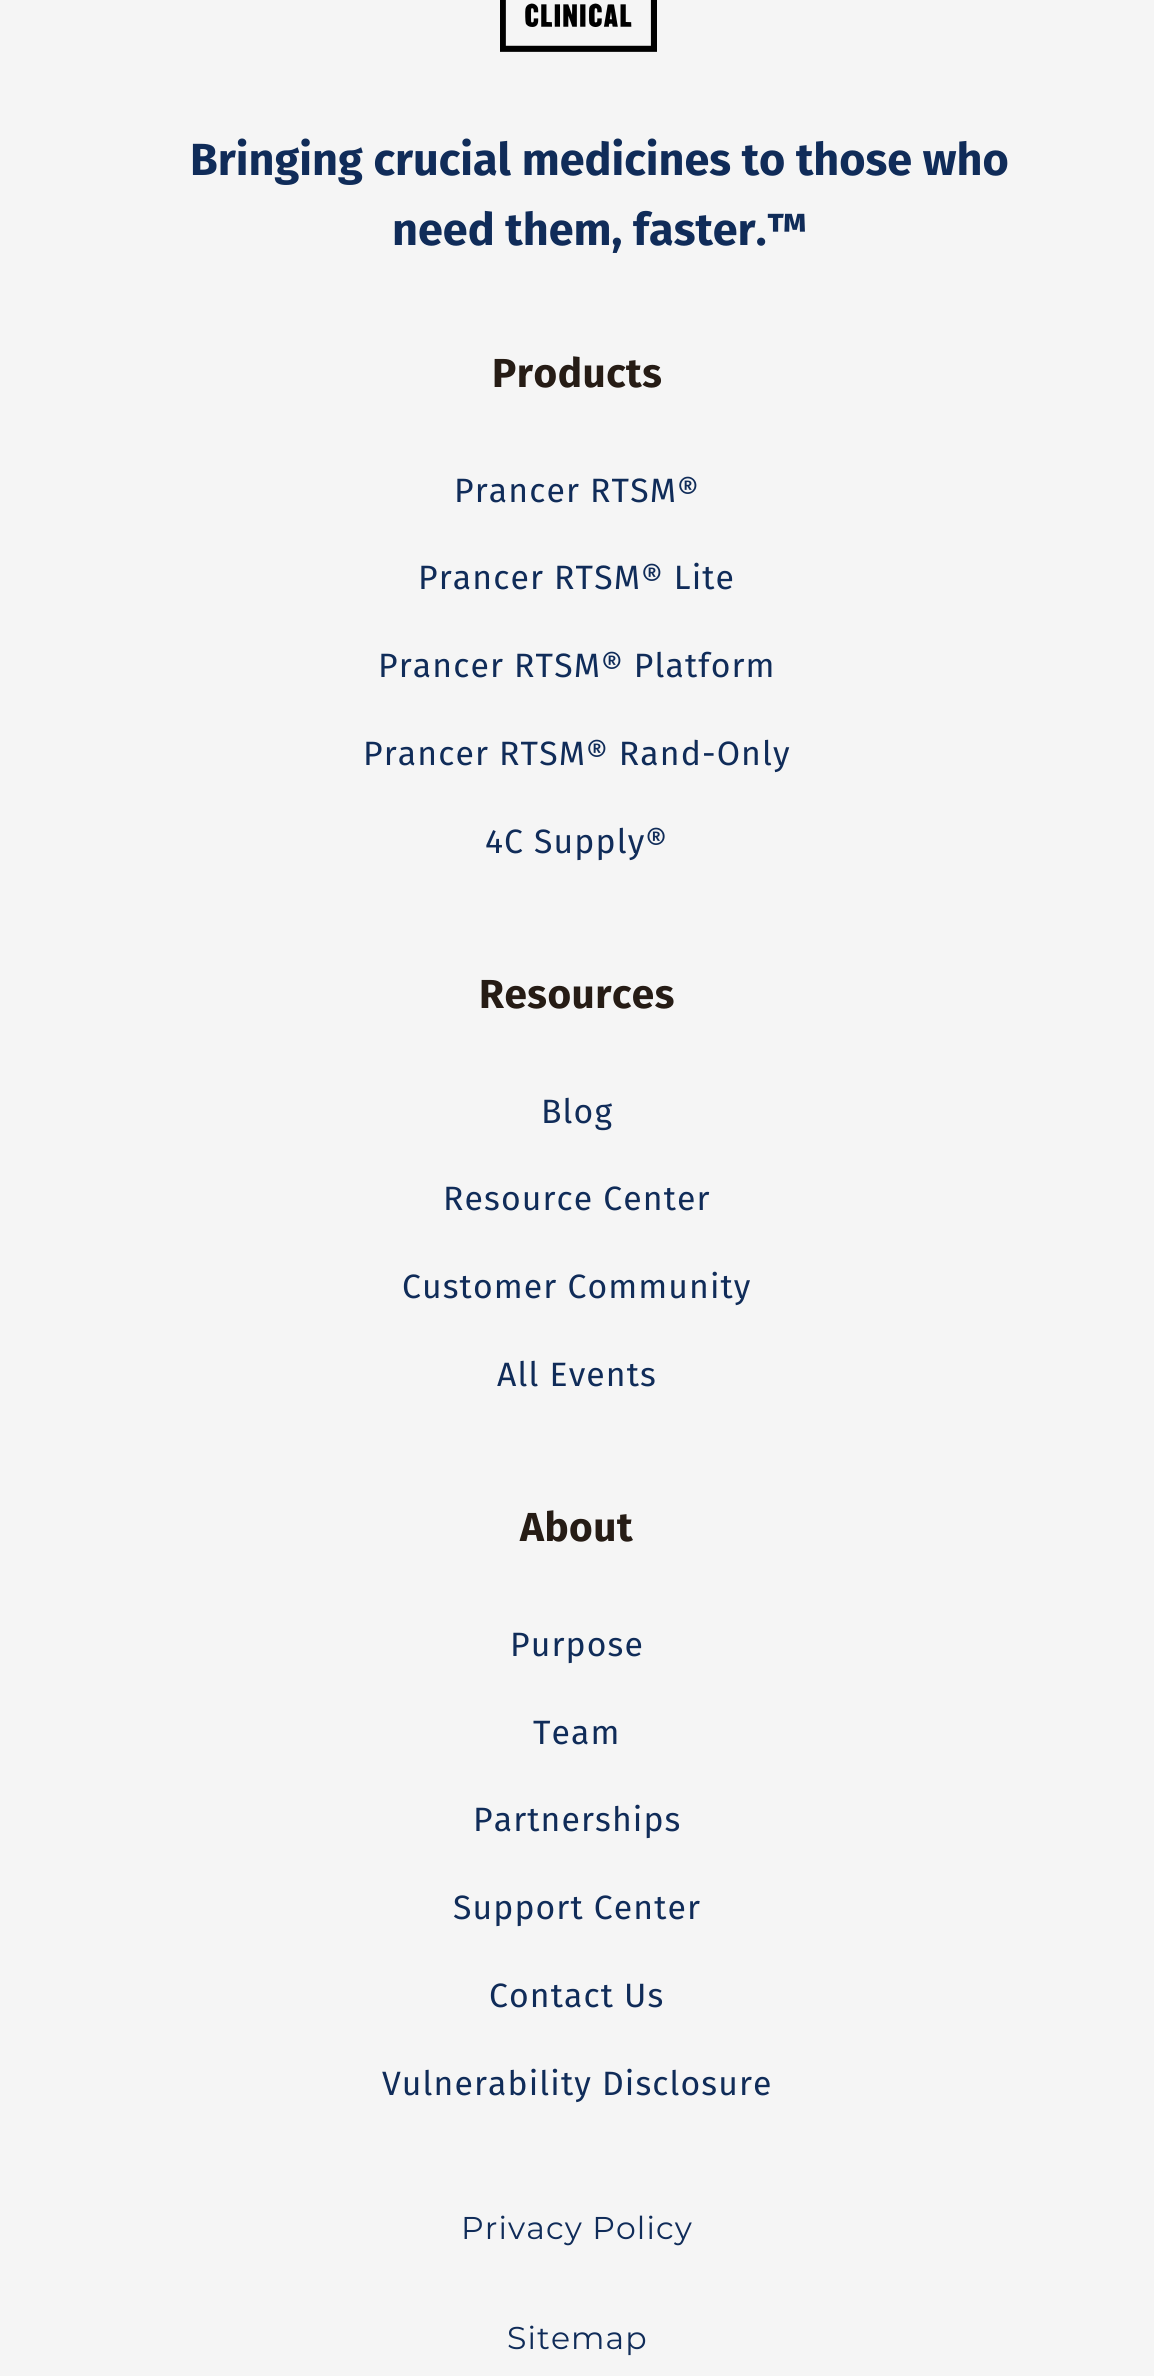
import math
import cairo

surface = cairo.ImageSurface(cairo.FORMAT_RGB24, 1154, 2376)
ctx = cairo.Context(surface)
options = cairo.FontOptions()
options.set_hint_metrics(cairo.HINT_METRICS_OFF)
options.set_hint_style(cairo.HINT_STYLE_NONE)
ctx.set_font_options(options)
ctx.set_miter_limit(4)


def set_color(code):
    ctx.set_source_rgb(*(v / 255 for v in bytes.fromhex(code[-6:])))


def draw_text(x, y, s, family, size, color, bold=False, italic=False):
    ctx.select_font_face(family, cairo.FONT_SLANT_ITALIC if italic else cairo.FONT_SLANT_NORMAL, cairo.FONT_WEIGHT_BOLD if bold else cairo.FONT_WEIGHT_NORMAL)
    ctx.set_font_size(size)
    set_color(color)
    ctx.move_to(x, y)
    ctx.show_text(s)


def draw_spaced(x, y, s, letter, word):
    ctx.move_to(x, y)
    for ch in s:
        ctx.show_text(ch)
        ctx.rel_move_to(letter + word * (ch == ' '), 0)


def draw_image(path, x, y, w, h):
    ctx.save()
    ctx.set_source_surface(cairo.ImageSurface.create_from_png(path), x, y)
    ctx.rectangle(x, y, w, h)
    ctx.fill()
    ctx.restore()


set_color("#f5f5f5")
ctx.paint()
draw_image("assets/img1.png", 500, 0, 157, 52)
draw_text(190, 175, "Bringing crucial medicines to those who", "Fira Sans", 45, "#102c59", bold=True)
draw_text(392, 245, "need them, faster.™", "Fira Sans", 45, "#102c59", bold=True)
ctx.set_font_size(40.5)
set_color("#261c15")
draw_spaced(492, 387, "Products", 0.5, 0)
ctx.select_font_face("Fira Sans")
ctx.set_font_size(33.75)
set_color("#102c59")
draw_spaced(454, 502, "Prancer RTSM®", 1.1, 0)
draw_spaced(418, 589, "Prancer RTSM® Lite", 1.1, 0)
draw_spaced(378, 677, "Prancer RTSM® Platform", 1.1, 0)
draw_spaced(363, 765, "Prancer RTSM® Rand-Only", 1.1, 0)
draw_spaced(485, 853, "4C Supply®", 1.1, 0)
ctx.select_font_face("Fira Sans", cairo.FONT_SLANT_NORMAL, cairo.FONT_WEIGHT_BOLD)
ctx.set_font_size(40.5)
set_color("#261c15")
draw_spaced(479, 1008, "Resources", 0.5, 0)
ctx.select_font_face("Fira Sans")
ctx.set_font_size(33.75)
set_color("#102c59")
draw_spaced(541, 1123, "Blog", 1.1, 0)
draw_spaced(443, 1210, "Resource Center", 1.1, 0)
draw_spaced(402, 1298, "Customer Community", 1.1, 0)
draw_spaced(497, 1386, "All Events", 1.1, 0)
ctx.select_font_face("Fira Sans", cairo.FONT_SLANT_NORMAL, cairo.FONT_WEIGHT_BOLD)
ctx.set_font_size(40.5)
set_color("#261c15")
draw_spaced(520, 1541, "About", 0.5, 0)
ctx.select_font_face("Fira Sans")
ctx.set_font_size(33.75)
set_color("#102c59")
draw_spaced(510, 1656, "Purpose", 1.1, 0)
draw_spaced(533, 1744, "Team", 1.1, 0)
draw_spaced(473, 1831, "Partnerships", 1.1, 0)
draw_spaced(453, 1919, "Support Center", 1.1, 0)
draw_spaced(489, 2007, "Contact Us", 1.1, 0)
draw_spaced(382, 2095, "Vulnerability Disclosure", 1.1, 0)
ctx.select_font_face("Montserrat")
ctx.set_font_size(31.5)
draw_spaced(461, 2239, "Privacy Policy", 1.1, 0)
draw_spaced(507, 2349, "Sitemap", 1.1, 0)
surface.write_to_png("output.png")
